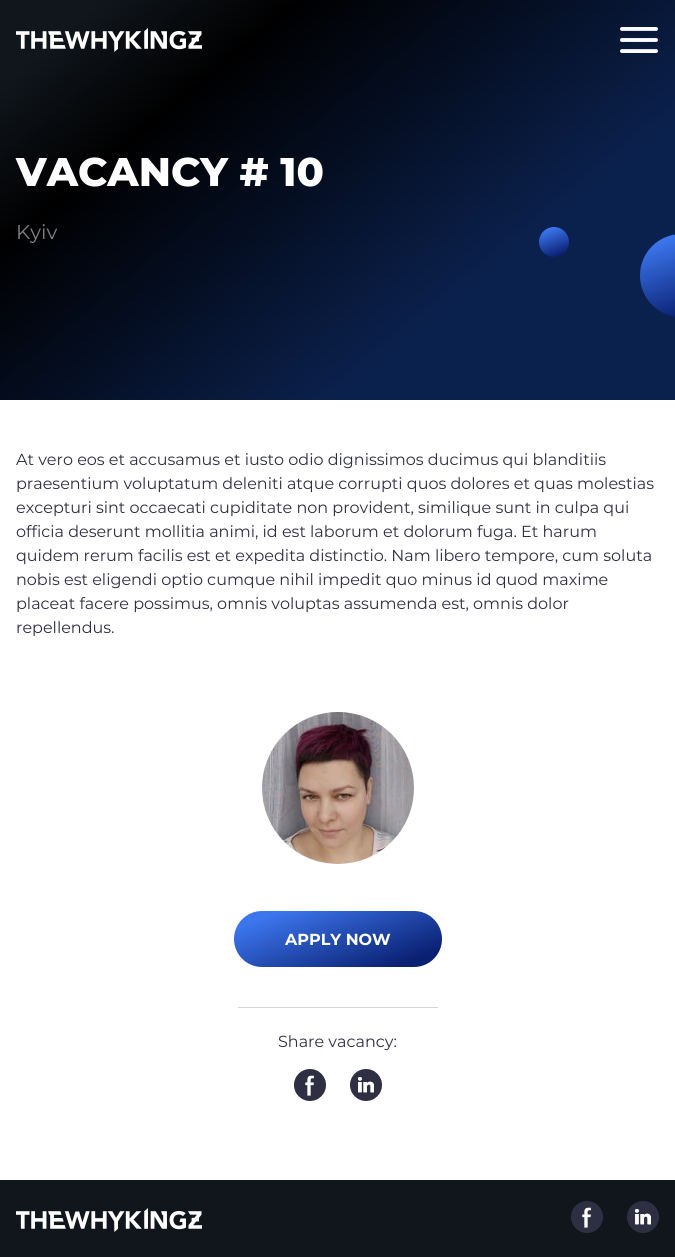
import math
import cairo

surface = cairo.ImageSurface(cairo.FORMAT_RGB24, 675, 1257)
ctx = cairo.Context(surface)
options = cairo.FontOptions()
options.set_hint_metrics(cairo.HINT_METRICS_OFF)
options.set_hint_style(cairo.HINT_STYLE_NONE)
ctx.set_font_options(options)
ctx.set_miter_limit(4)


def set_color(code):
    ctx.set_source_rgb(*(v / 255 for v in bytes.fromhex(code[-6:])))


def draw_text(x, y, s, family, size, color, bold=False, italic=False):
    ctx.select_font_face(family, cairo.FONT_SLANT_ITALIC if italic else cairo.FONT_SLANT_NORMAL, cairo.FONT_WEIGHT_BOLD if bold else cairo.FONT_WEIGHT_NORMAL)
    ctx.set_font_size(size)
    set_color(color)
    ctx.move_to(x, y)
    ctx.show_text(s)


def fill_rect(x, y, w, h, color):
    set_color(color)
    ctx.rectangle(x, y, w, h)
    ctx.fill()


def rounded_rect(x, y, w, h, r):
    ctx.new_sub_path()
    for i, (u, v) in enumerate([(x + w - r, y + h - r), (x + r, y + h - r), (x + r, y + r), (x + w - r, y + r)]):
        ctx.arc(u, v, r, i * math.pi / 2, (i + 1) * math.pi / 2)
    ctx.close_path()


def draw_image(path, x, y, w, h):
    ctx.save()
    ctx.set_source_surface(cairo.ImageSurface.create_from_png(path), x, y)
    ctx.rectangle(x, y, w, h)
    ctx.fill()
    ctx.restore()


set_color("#ffffff")
ctx.paint()
gradient = cairo.LinearGradient(102, -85, 573, 485)
gradient.add_color_stop_rgba(0.09, 0.063, 0.086, 0.11, 1)
gradient.add_color_stop_rgba(0.26, 0, 0, 0, 1)
gradient.add_color_stop_rgba(0.71, 0.043, 0.129, 0.302, 1)
ctx.set_source(gradient)
ctx.rectangle(0, 0, 675, 400)
ctx.fill()
draw_image("assets/img1.png", 16, 28, 186, 24)
draw_image("assets/img2.png", 620, 27, 38, 26)
draw_text(16, 186, "VACANCY # 10", "Montserrat ExtraBold", 40, "#ffffff")
draw_text(16, 239, "Kyiv", "Montserrat", 20, "#808081")
gradient = cairo.LinearGradient(547, 224, 561, 260)
gradient.add_color_stop_rgba(0.13, 0.235, 0.463, 0.933, 1)
gradient.add_color_stop_rgba(0.87, 0.039, 0.125, 0.443, 1)
ctx.set_source(gradient)
ctx.new_path()
ctx.arc(554, 242, 15, 0, 2 * math.pi)
ctx.fill()
gradient = cairo.LinearGradient(663, 225, 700, 326)
gradient.add_color_stop_rgba(0.13, 0.235, 0.463, 0.933, 1)
gradient.add_color_stop_rgba(0.87, 0.039, 0.125, 0.443, 1)
ctx.set_source(gradient)
ctx.new_path()
ctx.move_to(681.5, 234)
ctx.line_to(675, 234)
ctx.line_to(675, 317)
ctx.line_to(681.5, 317)
ctx.curve_to(658.5, 317, 640, 298.5, 640, 275.5)
ctx.curve_to(640, 252.5, 658.5, 234, 681.5, 234)
ctx.close_path()
ctx.fill()
draw_text(16, 465, "At vero eos et accusamus et iusto odio dignissimos ducimus qui blanditiis", "Montserrat", 16, "#2f2f43")
draw_text(16, 489, "praesentium voluptatum deleniti atque corrupti quos dolores et quas molestias", "Montserrat", 16, "#2f2f43")
draw_text(16, 513, "excepturi sint occaecati cupiditate non provident, similique sunt in culpa qui", "Montserrat", 16, "#2f2f43")
draw_text(16, 537, "officia deserunt mollitia animi, id est laborum et dolorum fuga. Et harum", "Montserrat", 16, "#2f2f43")
draw_text(16, 561, "quidem rerum facilis est et expedita distinctio. Nam libero tempore, cum soluta", "Montserrat", 16, "#2f2f43")
draw_text(16, 585, "nobis est eligendi optio cumque nihil impedit quo minus id quod maxime", "Montserrat", 16, "#2f2f43")
draw_text(16, 609, "placeat facere possimus, omnis voluptas assumenda est, omnis dolor", "Montserrat", 16, "#2f2f43")
draw_text(16, 633, "repellendus.", "Montserrat", 16, "#2f2f43")
draw_image("assets/img3.png", 262, 712, 152, 152)
gradient = cairo.LinearGradient(316, 880, 360, 998)
gradient.add_color_stop_rgba(0.13, 0.235, 0.463, 0.933, 1)
gradient.add_color_stop_rgba(0.87, 0.039, 0.125, 0.443, 1)
ctx.set_source(gradient)
rounded_rect(234, 911, 208, 56, 28)
ctx.fill()
draw_text(285, 945, "APPLY NOW", "Montserrat", 16, "#ffffff", bold=True)
fill_rect(238, 1007, 200, 1, "#d5d5d9")
draw_text(278, 1047, "Share vacancy:", "Montserrat", 16, "#2f2f43")
ctx.new_path()
ctx.arc(310, 1085, 16, 0, 2 * math.pi)
ctx.fill()
draw_image("assets/img4.png", 305, 1075, 9, 21)
ctx.arc(366, 1085, 16, 0, 2 * math.pi)
ctx.fill()
draw_image("assets/img5.png", 358, 1077, 16, 16)
fill_rect(0, 1180, 675, 77, "#10161c")
draw_image("assets/img6.png", 16, 1208, 186, 24)
set_color("#2f2f43")
ctx.arc(587, 1217, 16, 0, 2 * math.pi)
ctx.fill()
draw_image("assets/img4.png", 582, 1207, 9, 21)
ctx.arc(643, 1217, 16, 0, 2 * math.pi)
ctx.fill()
draw_image("assets/img5.png", 635, 1209, 16, 16)
surface.write_to_png("output.png")
